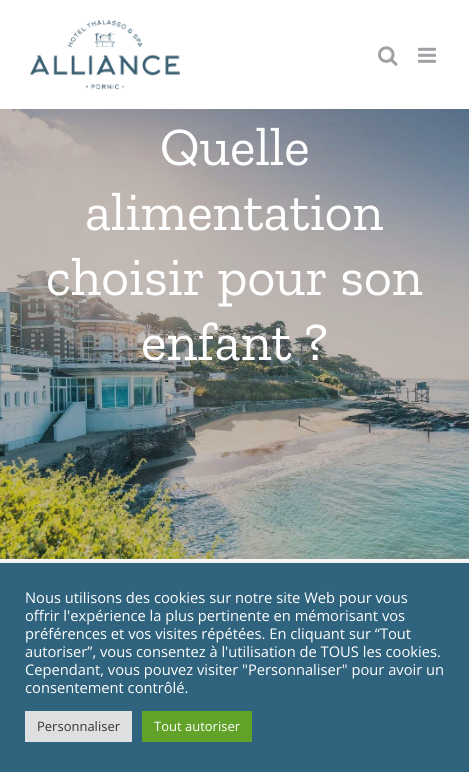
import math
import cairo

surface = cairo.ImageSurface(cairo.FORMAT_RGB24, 469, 772)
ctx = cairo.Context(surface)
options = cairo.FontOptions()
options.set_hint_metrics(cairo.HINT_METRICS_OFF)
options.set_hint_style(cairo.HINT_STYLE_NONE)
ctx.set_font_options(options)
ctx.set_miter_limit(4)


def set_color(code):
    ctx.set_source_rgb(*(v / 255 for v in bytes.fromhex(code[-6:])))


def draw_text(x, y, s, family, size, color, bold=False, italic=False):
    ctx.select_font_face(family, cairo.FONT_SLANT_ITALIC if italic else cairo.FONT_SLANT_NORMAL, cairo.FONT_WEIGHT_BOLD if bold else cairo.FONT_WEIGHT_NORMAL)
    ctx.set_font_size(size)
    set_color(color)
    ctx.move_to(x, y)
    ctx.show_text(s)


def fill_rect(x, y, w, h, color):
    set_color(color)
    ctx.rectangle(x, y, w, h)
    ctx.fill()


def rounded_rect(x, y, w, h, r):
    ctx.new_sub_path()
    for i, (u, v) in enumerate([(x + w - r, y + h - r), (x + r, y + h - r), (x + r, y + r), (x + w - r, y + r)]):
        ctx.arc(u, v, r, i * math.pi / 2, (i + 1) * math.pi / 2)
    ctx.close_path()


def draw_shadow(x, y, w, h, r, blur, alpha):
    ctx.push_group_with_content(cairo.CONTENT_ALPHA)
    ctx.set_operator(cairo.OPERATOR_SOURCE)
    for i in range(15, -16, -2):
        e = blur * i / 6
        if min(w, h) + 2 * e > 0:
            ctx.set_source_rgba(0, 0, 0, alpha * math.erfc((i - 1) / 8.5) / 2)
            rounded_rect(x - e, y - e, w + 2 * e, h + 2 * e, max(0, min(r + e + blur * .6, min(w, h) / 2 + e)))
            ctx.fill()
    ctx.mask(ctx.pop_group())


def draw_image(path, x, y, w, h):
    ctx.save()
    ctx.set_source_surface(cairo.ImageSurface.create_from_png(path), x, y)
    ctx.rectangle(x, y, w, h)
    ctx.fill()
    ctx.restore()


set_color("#ffffff")
ctx.paint()
draw_image("assets/img1.png", 30, 20, 150, 70)
draw_image("assets/img2.png", 378, 46, 20, 20)
draw_image("assets/img3.png", 418, 47, 18, 16)
draw_image("assets/img4.png", 0, 109, 469, 450)
draw_text(160, 165, "Quelle", "Zilla Slab", 54, "#ffffff")
draw_text(85, 230, "alimentation", "Zilla Slab", 54, "#ffffff")
draw_text(46, 295, "choisir pour son", "Zilla Slab", 54, "#ffffff")
draw_text(141, 360, "enfant ?", "Zilla Slab", 54, "#ffffff")
set_color("#acabab")
draw_shadow(0, 562, 469, 209, 0, 5, 0.3)
fill_rect(0, 563, 469, 209, "#2f637e")
draw_text(25, 603, "Nous utilisons des cookies sur notre site Web pour vous", "Open Sans", 14.7, "#ffffff")
draw_text(25, 621, "offrir l'expérience la plus pertinente en mémorisant vos", "Open Sans", 14.7, "#ffffff")
draw_text(25, 639, "préférences et vos visites répétées. En cliquant sur “Tout", "Open Sans", 14.7, "#ffffff")
draw_text(25, 657, "autoriser”, vous consentez à l'utilisation de TOUS les cookies.", "Open Sans", 14.7, "#ffffff")
draw_text(25, 675, "Cependant, vous pouvez visiter \"Personnaliser\" pour avoir un", "Open Sans", 14.7, "#ffffff")
draw_text(25, 693, "consentement contrôlé.", "Open Sans", 14.7, "#ffffff")
fill_rect(25, 711, 107, 31, "#dedfe0")
draw_text(37, 731, "Personnaliser", "Open Sans", 13, "#333333")
fill_rect(142, 711, 110, 31, "#61a229")
draw_text(154, 731, "Tout autoriser", "Open Sans", 13, "#ffffff")
surface.write_to_png("output.png")
